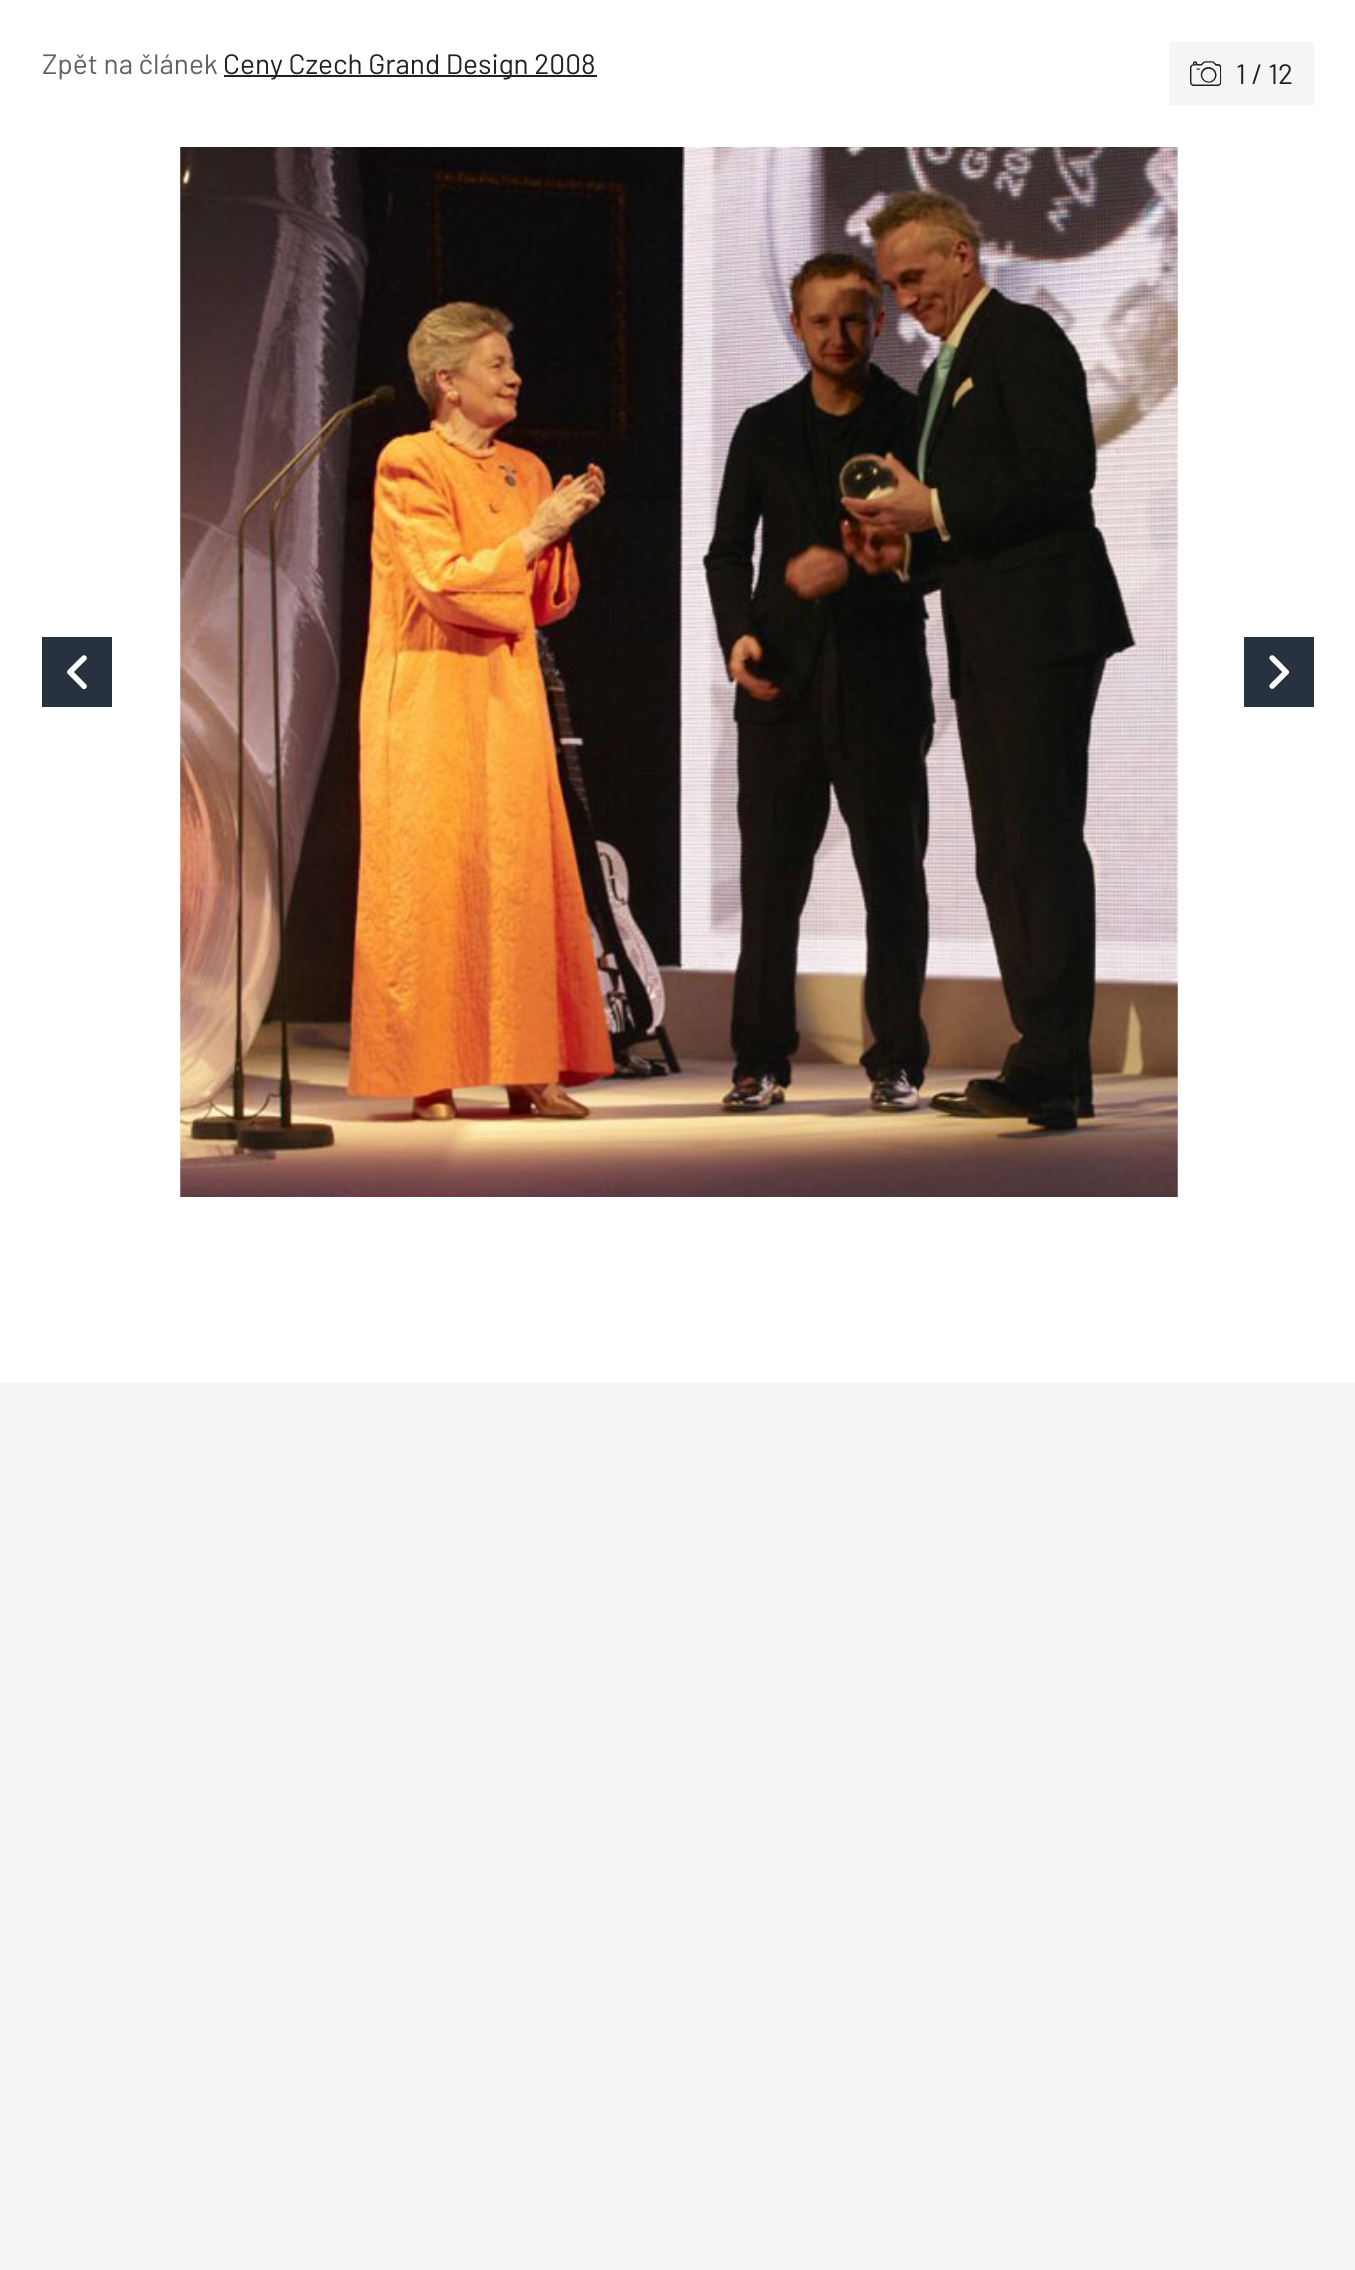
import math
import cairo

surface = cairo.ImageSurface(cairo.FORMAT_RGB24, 1355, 2270)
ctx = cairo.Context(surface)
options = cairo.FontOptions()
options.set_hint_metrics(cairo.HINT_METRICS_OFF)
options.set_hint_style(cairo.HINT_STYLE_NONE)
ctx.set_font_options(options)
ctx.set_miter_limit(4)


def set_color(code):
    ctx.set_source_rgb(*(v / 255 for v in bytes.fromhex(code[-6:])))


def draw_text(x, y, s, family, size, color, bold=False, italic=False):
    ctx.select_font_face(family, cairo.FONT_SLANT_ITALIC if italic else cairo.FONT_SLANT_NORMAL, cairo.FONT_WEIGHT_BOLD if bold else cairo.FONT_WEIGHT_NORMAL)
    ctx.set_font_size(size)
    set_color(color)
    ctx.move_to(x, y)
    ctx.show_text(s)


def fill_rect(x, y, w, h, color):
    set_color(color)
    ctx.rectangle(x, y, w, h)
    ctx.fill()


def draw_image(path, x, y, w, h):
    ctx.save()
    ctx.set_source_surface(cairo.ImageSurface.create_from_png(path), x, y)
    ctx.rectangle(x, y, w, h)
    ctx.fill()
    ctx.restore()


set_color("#ffffff")
ctx.paint()
draw_text(42, 74, "Zpět na článek", "Barlow", 28, "#616161")
fill_rect(224, 75, 373, 2, "#212121")
draw_text(223, 74, "Ceny Czech Grand Design 2008", "Barlow", 28, "#212121")
fill_rect(1169, 42, 145, 63, "#f5f5f5")
draw_image("assets/img1.png", 1190, 61, 32, 25)
draw_text(1236, 84, "1 / 12", "Barlow", 28, "#212121")
fill_rect(42, 637, 70, 70, "#28313e")
draw_image("assets/img2.png", 67, 655, 20, 34)
draw_image("assets/img3.png", 180, 147, 998, 1050)
fill_rect(1244, 637, 70, 70, "#28313e")
draw_image("assets/img4.png", 1269, 655, 21, 34)
fill_rect(0, 1383, 1355, 887, "#f5f5f5")
surface.write_to_png("output.png")
